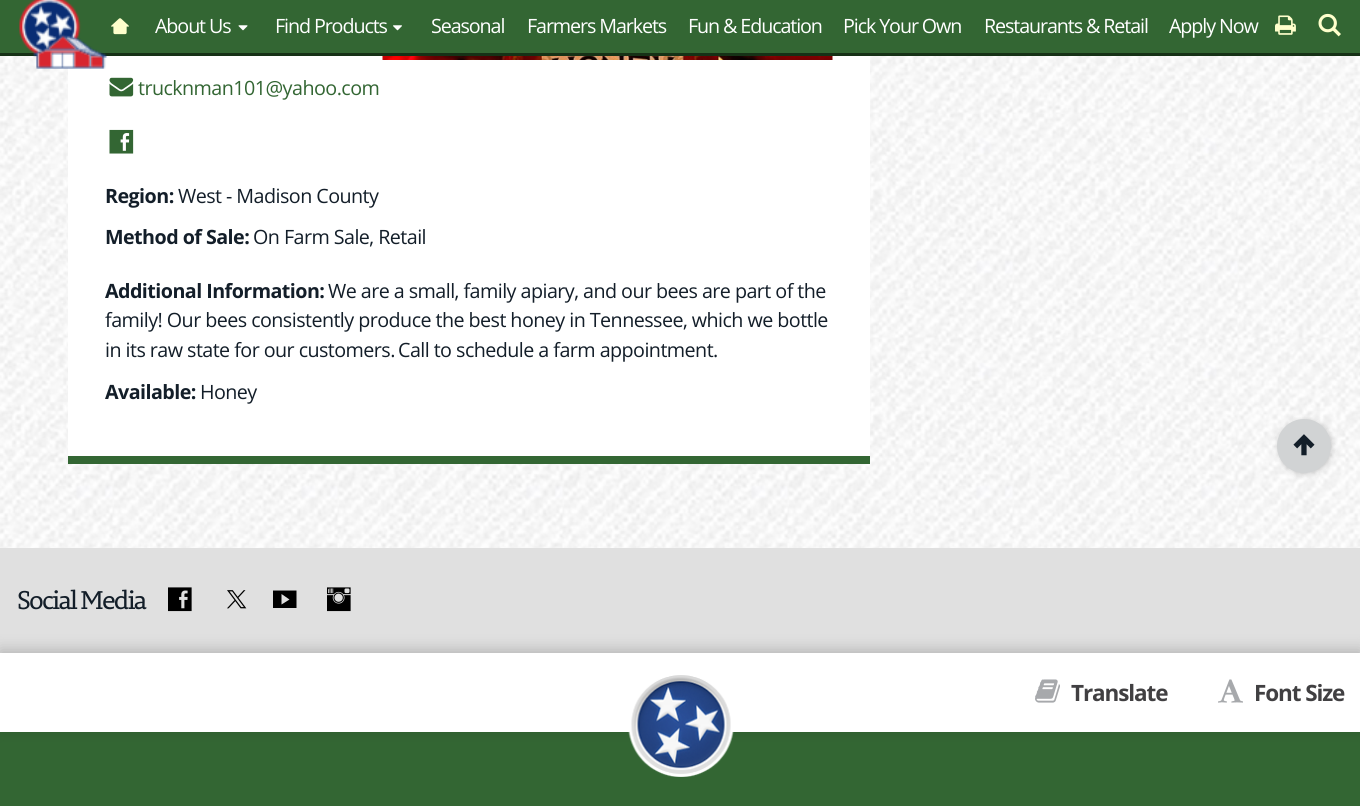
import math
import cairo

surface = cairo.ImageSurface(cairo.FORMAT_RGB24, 1360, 806)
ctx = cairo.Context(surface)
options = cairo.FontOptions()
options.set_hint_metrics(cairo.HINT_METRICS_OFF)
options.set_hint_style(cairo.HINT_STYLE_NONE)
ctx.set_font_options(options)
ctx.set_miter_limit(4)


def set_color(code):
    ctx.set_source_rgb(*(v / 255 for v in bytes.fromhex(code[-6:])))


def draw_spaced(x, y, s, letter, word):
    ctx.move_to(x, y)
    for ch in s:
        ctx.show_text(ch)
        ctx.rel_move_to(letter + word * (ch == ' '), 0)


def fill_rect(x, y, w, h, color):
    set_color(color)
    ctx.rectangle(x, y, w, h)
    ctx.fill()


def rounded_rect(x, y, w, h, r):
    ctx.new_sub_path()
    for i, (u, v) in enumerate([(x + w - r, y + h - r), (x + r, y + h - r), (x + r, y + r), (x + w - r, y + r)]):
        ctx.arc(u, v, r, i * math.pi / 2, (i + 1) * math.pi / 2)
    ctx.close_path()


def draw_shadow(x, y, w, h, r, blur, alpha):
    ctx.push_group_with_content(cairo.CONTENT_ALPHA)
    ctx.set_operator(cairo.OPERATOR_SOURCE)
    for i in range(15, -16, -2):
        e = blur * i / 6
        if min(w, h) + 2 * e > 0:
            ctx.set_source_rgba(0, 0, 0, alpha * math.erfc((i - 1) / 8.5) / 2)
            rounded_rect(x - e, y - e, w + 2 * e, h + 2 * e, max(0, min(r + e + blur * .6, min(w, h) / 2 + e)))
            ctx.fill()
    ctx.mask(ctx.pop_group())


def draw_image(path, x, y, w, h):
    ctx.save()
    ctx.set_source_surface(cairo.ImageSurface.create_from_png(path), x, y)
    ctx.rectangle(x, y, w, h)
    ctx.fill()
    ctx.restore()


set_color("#ffffff")
ctx.paint()
draw_image("assets/img1.png", 0, 56, 1360, 492)
fill_rect(0, 0, 1360, 53, "#336633")
fill_rect(0, 53, 1360, 3, "#163116")
fill_rect(68, 56, 802, 400, "#ffffff")
draw_image("assets/img2.png", 19, 0, 88, 69)
draw_image("assets/img3.png", 111, 18, 18, 17)
ctx.select_font_face("Open Sans")
ctx.set_font_size(19.7)
draw_spaced(155, 33, "About Us", -1.1, 0)
draw_image("assets/img4.png", 238, 25, 10, 6)
draw_spaced(275, 33, "Find Products", -1.1, 0)
draw_image("assets/img5.png", 393, 25, 9, 6)
draw_spaced(431, 33, "Seasonal", -1.1, 0)
draw_spaced(527, 33, "Farmers Markets", -1.1, 0)
draw_spaced(688, 33, "Fun & Education", -1.1, 0)
draw_spaced(843, 33, "Pick Your Own", -1.1, 0)
draw_spaced(984, 33, "Restaurants & Retail", -1.1, 0)
draw_spaced(1169, 33, "Apply Now", -1.1, 0)
draw_image("assets/img6.png", 1275, 15, 21, 20)
draw_image("assets/img7.png", 1318, 13, 23, 24)
fill_rect(68, 456, 802, 8, "#336633")
draw_image("assets/img8.png", 382, 56, 451, 4)
draw_image("assets/img9.png", 109, 77, 25, 20)
draw_spaced(138, 95, "trucknman101@yahoo.com", -0.55, 0)
draw_image("assets/img10.png", 109, 129, 25, 25)
ctx.select_font_face("Open Sans", cairo.FONT_SLANT_NORMAL, cairo.FONT_WEIGHT_BOLD)
set_color("#131e29")
draw_spaced(105, 203, "Region:", -0.55, 0)
ctx.select_font_face("Open Sans")
draw_spaced(178, 203, "West - Madison County", -0.55, 0)
ctx.select_font_face("Open Sans", cairo.FONT_SLANT_NORMAL, cairo.FONT_WEIGHT_BOLD)
draw_spaced(105, 244, "Method of Sale:", -0.55, 0)
ctx.select_font_face("Open Sans")
draw_spaced(253, 244, "On Farm Sale, Retail", -0.55, 0)
ctx.select_font_face("Open Sans", cairo.FONT_SLANT_NORMAL, cairo.FONT_WEIGHT_BOLD)
draw_spaced(105, 298, "Additional Information:", -0.55, 0)
ctx.select_font_face("Open Sans")
draw_spaced(328, 298, "We are a small, family apiary, and our bees are part of the", -0.55, 0)
draw_spaced(105, 327, "family! Our bees consistently produce the best honey in Tennessee, which we bottle", -0.55, 0)
draw_spaced(105, 357, "in its raw state for our customers.", -0.55, 0)
draw_spaced(398, 357, "Call to schedule a farm appointment.", -0.55, 0)
ctx.select_font_face("Open Sans", cairo.FONT_SLANT_NORMAL, cairo.FONT_WEIGHT_BOLD)
draw_spaced(105, 399, "Available:", -0.55, 0)
ctx.select_font_face("Open Sans")
draw_spaced(200, 399, "Honey", -0.55, 0)
set_color("#000000")
draw_shadow(1278, 420, 54, 54, 27, 3, 0.2)
set_color("#d1d3d4")
ctx.arc(1304, 446, 27, 0, 2 * math.pi)
ctx.fill()
draw_image("assets/img11.png", 1293, 434, 22, 22)
fill_rect(0, 548, 1360, 105, "#e0e0e0")
ctx.select_font_face("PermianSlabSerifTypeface")
ctx.set_font_size(25.5)
set_color("#131e29")
draw_spaced(17, 609, "Social Media", -1.9, 0)
draw_image("assets/img12.png", 168, 587, 24, 25)
draw_image("assets/img13.png", 227, 590, 20, 19)
set_color("#000000")
ctx.new_path()
ctx.move_to(273, 608)
ctx.line_to(273, 590.5)
ctx.line_to(296.5, 590.5)
ctx.line_to(296.5, 608)
ctx.close_path()
ctx.move_to(281.5, 604.5)
ctx.line_to(289.5, 599.5)
ctx.line_to(281.5, 594)
ctx.close_path()
ctx.fill()
draw_image("assets/img14.png", 327, 587, 24, 25)
fill_rect(0, 732, 1360, 74, "#336633")
set_color("#000000")
draw_shadow(0, 650, 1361, 79, 0, 7.5, 0.2)
fill_rect(0, 653, 1360, 79, "#ffffff")
draw_image("assets/img15.png", 628, 675, 106, 102)
draw_image("assets/img16.png", 1035, 679, 25, 24)
ctx.select_font_face("Open Sans", cairo.FONT_SLANT_NORMAL, cairo.FONT_WEIGHT_BOLD)
ctx.set_font_size(22.5)
set_color("#414042")
draw_spaced(1071, 701, "Translate", -1.1, 0)
draw_image("assets/img17.png", 1218, 679, 25, 24)
draw_spaced(1254, 701, "Font Size", -1.1, 0)
surface.write_to_png("output.png")
